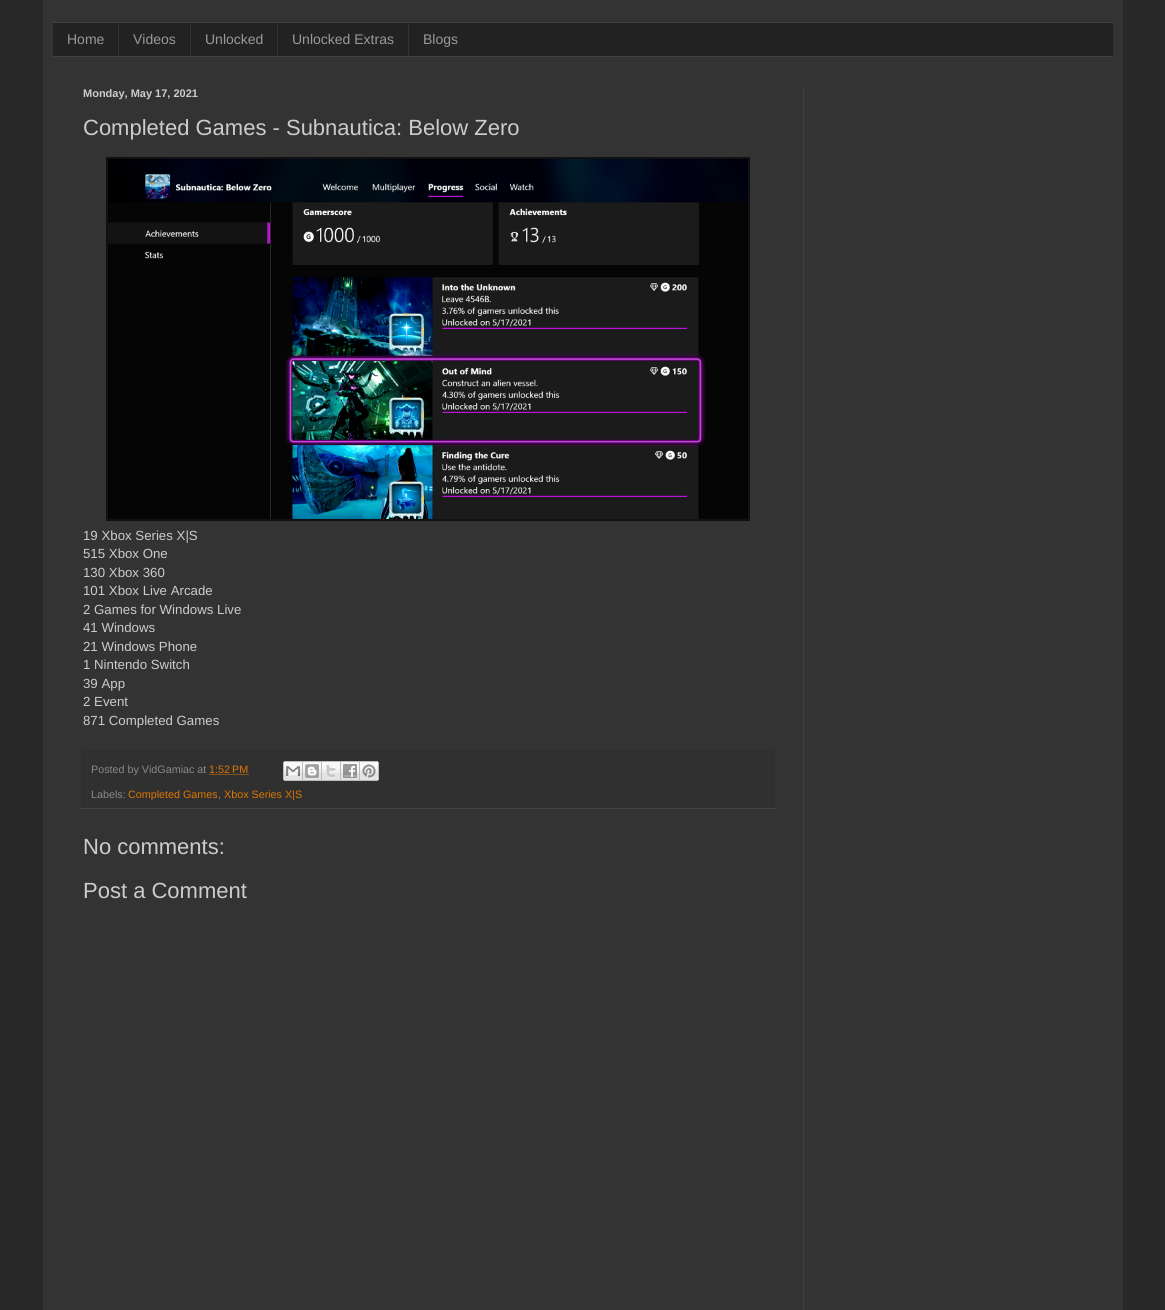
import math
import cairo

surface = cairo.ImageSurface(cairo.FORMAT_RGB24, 1165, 1310)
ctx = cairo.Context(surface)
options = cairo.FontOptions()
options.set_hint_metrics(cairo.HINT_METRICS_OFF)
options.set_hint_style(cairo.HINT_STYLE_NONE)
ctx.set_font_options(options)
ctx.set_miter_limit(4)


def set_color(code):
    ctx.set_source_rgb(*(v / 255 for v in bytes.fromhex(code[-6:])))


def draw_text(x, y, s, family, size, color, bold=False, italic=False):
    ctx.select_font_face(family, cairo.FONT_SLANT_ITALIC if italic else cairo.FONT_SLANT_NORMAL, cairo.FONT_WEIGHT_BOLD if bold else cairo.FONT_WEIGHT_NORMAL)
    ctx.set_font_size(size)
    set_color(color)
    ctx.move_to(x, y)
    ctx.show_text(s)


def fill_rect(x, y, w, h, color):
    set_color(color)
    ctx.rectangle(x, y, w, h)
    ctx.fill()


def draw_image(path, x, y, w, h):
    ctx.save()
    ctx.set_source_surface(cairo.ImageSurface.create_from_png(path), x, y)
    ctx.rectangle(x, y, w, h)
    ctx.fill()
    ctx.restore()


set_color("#292929")
ctx.paint()
fill_rect(43, 0, 1080, 1310, "#333333")
fill_rect(53, 23, 1060, 33, "#222222")
fill_rect(53, 22, 1060, 1, "#404040")
fill_rect(53, 56, 1060, 1, "#404040")
draw_text(67, 44, "Home", "Liberation Sans", 14, "#999999")
fill_rect(118, 23, 1, 33, "#333333")
draw_text(133, 44, "Videos", "Liberation Sans", 14, "#999999")
fill_rect(190, 23, 1, 33, "#333333")
draw_text(205, 44, "Unlocked", "Liberation Sans", 14, "#999999")
fill_rect(277, 23, 1, 33, "#333333")
draw_text(292, 44, "Unlocked Extras", "Liberation Sans", 14, "#999999")
fill_rect(408, 23, 1, 33, "#333333")
draw_text(423, 44, "Blogs", "Liberation Sans", 14, "#999999")
draw_text(83, 97, "Monday, May 17, 2021", "Liberation Sans", 11, "#cccccc", bold=True)
draw_text(83, 135, "Completed Games - Subnautica: Below Zero", "Liberation Sans", 22, "#cccccc")
fill_rect(106, 157, 644, 364, "#111111")
draw_image("assets/img1.png", 108, 159, 640, 360)
draw_text(83, 540, "19 Xbox Series X|S", "Liberation Sans", 13.25, "#cccccc")
draw_text(83, 558, "515 Xbox One", "Liberation Sans", 13.25, "#cccccc")
draw_text(83, 577, "130 Xbox 360", "Liberation Sans", 13.25, "#cccccc")
draw_text(83, 595, "101 Xbox Live Arcade", "Liberation Sans", 13.25, "#cccccc")
draw_text(83, 614, "2 Games for Windows Live", "Liberation Sans", 13.25, "#cccccc")
draw_text(83, 632, "41 Windows", "Liberation Sans", 13.25, "#cccccc")
draw_text(83, 651, "21 Windows Phone", "Liberation Sans", 13.25, "#cccccc")
draw_text(83, 669, "1 Nintendo Switch", "Liberation Sans", 13.25, "#cccccc")
draw_text(83, 688, "39 App", "Liberation Sans", 13.25, "#cccccc")
draw_text(83, 706, "2 Event", "Liberation Sans", 13.25, "#cccccc")
draw_text(83, 725, "871 Completed Games", "Liberation Sans", 13.25, "#cccccc")
fill_rect(81, 750, 694, 58, "#303030")
fill_rect(81, 808, 694, 1, "#444444")
draw_text(91, 773, "Posted by VidGamiac at", "Liberation Sans", 10.75, "#888888")
draw_text(209, 773, "1:52 PM", "Liberation Sans", 10.75, "#dd7700")
ctx.new_path()
ctx.move_to(209.5, 774.5)
ctx.line_to(248.5, 774.5)
ctx.set_line_width(1)
ctx.set_dash([1, 1])
ctx.stroke()
draw_image("assets/img2.png", 283, 761, 20, 20)
draw_image("assets/img3.png", 303, 761, 19, 20)
draw_image("assets/img4.png", 322, 761, 19, 20)
draw_image("assets/img5.png", 341, 761, 19, 20)
draw_image("assets/img6.png", 360, 761, 19, 20)
draw_text(91, 798, "Labels:", "Liberation Sans", 10.75, "#888888")
draw_text(128, 798, "Completed Games", "Liberation Sans", 10.75, "#dd7700")
draw_text(218, 798, ",", "Liberation Sans", 10.75, "#888888")
draw_text(224, 798, "Xbox Series X|S", "Liberation Sans", 10.75, "#dd7700")
draw_text(83, 854, "No comments:", "Liberation Sans", 22, "#cccccc")
draw_text(83, 898, "Post a Comment", "Liberation Sans", 22, "#cccccc")
fill_rect(803, 87, 1, 1223, "#404040")
surface.write_to_png("output.png")
